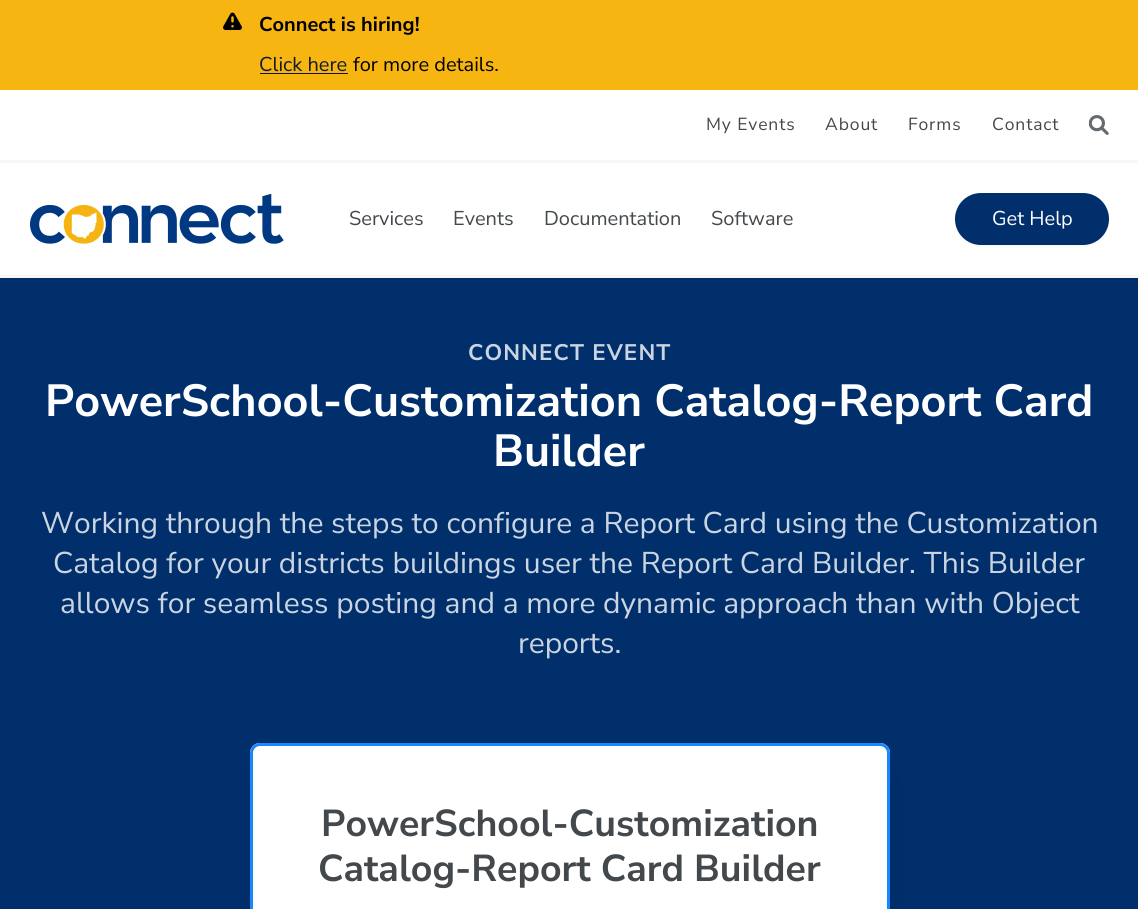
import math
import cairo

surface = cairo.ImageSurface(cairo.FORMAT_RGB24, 1138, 909)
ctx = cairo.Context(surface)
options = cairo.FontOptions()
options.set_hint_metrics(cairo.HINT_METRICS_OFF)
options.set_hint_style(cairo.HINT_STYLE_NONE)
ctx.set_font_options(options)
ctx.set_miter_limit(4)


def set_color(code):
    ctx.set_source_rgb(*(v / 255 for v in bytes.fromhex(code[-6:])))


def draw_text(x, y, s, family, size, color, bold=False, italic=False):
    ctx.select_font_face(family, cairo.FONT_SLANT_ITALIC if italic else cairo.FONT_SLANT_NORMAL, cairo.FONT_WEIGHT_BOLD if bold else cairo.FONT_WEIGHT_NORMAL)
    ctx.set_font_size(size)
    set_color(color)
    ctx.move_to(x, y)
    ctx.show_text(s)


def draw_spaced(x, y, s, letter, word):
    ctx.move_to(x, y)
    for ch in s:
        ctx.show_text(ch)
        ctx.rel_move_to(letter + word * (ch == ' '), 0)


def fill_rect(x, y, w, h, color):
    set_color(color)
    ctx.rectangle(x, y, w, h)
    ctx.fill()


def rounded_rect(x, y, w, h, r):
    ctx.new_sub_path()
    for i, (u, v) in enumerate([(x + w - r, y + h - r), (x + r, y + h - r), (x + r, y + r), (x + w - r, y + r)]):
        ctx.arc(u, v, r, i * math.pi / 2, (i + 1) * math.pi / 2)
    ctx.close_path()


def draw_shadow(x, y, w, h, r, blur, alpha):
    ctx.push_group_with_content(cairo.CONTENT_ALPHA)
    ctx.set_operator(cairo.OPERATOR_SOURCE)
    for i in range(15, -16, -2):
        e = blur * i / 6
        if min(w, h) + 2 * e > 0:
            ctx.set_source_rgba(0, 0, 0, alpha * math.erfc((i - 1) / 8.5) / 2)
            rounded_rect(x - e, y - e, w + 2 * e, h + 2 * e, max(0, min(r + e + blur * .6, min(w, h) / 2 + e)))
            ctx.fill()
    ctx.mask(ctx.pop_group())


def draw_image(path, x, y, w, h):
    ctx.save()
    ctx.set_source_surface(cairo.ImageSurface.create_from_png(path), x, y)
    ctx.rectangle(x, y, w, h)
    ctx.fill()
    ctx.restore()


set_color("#f7b512")
ctx.paint()
draw_image("assets/img1.png", 223, 12, 19, 18)
draw_text(259, 31, "Connect is hiring!", "Nunito Sans", 20, "#000000", bold=True)
draw_text(259, 71, "Click here", "Nunito Sans", 20, "#111827")
fill_rect(260, 73, 88, 1, "#111827")
draw_text(353, 71, "for more details.", "Nunito Sans", 20, "#000000")
fill_rect(0, 90, 1138, 70, "#ffffff")
fill_rect(0, 160, 1138, 3, "#f7f7f7")
ctx.set_font_size(17.5)
set_color("#43484c")
draw_spaced(706, 130, "My Events", 0.9, 0)
draw_spaced(825, 130, "About", 0.9, 0)
draw_spaced(908, 130, "Forms", 0.9, 0)
draw_spaced(992, 130, "Contact", 0.9, 0)
draw_image("assets/img2.png", 1089, 115, 20, 20)
fill_rect(0, 163, 1138, 112, "#ffffff")
fill_rect(0, 275, 1138, 3, "#f7f7f7")
draw_image("assets/img3.png", 30, 194, 254, 50)
draw_text(349, 225, "Services", "Nunito Sans", 20, "#43484c")
draw_text(453, 225, "Events", "Nunito Sans", 20, "#43484c")
draw_text(544, 225, "Documentation", "Nunito Sans", 20, "#43484c")
draw_text(711, 225, "Software", "Nunito Sans", 20, "#43484c")
set_color("#000000")
draw_shadow(955, 194, 154, 52, 26, 1, 0.05)
set_color("#002f6c")
rounded_rect(955, 193, 154, 52, 26)
ctx.fill()
draw_text(992, 225, "Get Help", "Nunito Sans", 20, "#ffffff")
fill_rect(0, 278, 1138, 631, "#002f6c")
ctx.select_font_face("Nunito Sans", cairo.FONT_SLANT_NORMAL, cairo.FONT_WEIGHT_BOLD)
ctx.set_font_size(22.5)
set_color("#cbd5e1")
draw_spaced(468, 360, "CONNECT EVENT", 1.1, 0)
draw_text(45, 416, "PowerSchool-Customization Catalog-Report Card", "Nunito Sans", 45, "#ffffff", bold=True)
draw_text(493, 466, "Builder", "Nunito Sans", 45, "#ffffff", bold=True)
draw_text(41, 533, "Working through the steps to configure a Report Card using the Customization", "Nunito Sans", 30, "#cbd5e1")
draw_text(53, 573, "Catalog for your districts buildings user the Report Card Builder. This Builder", "Nunito Sans", 30, "#cbd5e1")
draw_text(60, 613, "allows for seamless posting and a more dynamic approach than with Object", "Nunito Sans", 30, "#cbd5e1")
draw_text(518, 653, "reports.", "Nunito Sans", 30, "#cbd5e1")
set_color("#000000")
draw_shadow(256, 774, 628, 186, 4, 15.5, 0.1)
set_color("#ffffff")
ctx.new_path()
ctx.move_to(260, 743)
ctx.line_to(880, 743)
ctx.curve_to(885.5, 743, 890, 747.5, 890, 753)
ctx.line_to(890, 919)
ctx.line_to(250, 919)
ctx.line_to(250, 753)
ctx.curve_to(250, 747.5, 254.5, 743, 260, 743)
ctx.close_path()
ctx.fill()
rounded_rect(251.5, 744.5, 637, 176, 8.5)
set_color("#1987ff")
ctx.set_line_width(3)
ctx.stroke()
draw_text(321, 836, "PowerSchool-Customization", "Nunito Sans", 37.5, "#43484c", bold=True)
draw_text(318, 881, "Catalog-Report Card Builder", "Nunito Sans", 37.5, "#43484c", bold=True)
surface.write_to_png("output.png")
